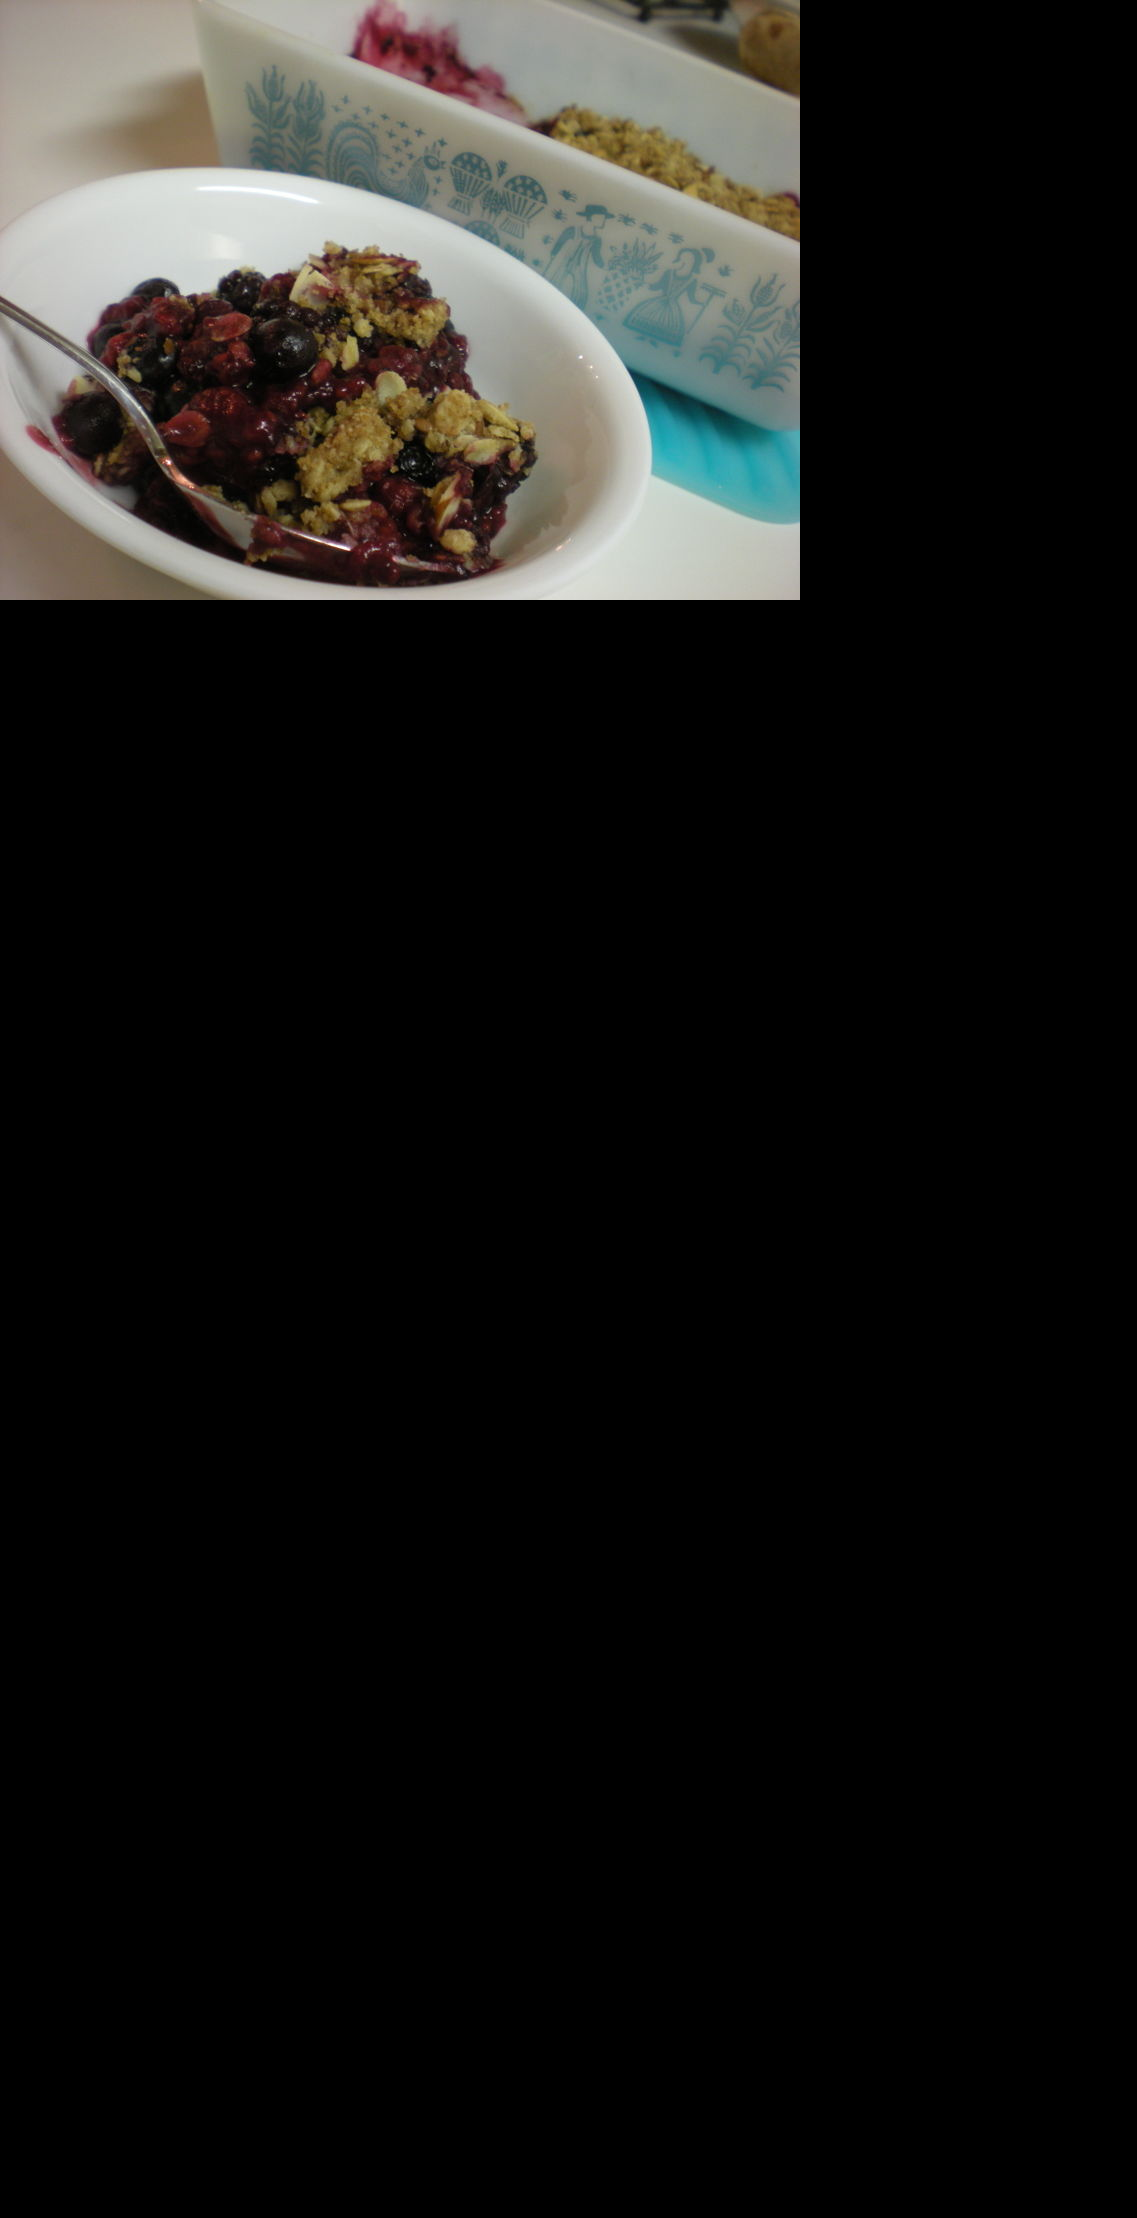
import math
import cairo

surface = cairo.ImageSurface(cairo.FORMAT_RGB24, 1137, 2218)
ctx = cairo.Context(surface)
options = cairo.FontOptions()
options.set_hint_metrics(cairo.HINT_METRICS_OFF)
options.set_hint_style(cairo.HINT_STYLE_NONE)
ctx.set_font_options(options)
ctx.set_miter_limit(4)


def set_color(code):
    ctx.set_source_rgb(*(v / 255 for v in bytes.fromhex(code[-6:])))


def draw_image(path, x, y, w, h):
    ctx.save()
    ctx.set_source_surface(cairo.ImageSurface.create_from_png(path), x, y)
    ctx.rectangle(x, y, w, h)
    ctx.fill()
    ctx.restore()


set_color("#000000")
ctx.paint()
draw_image("assets/img1.png", 0, 0, 800, 600)
surface.write_to_png("output.png")
